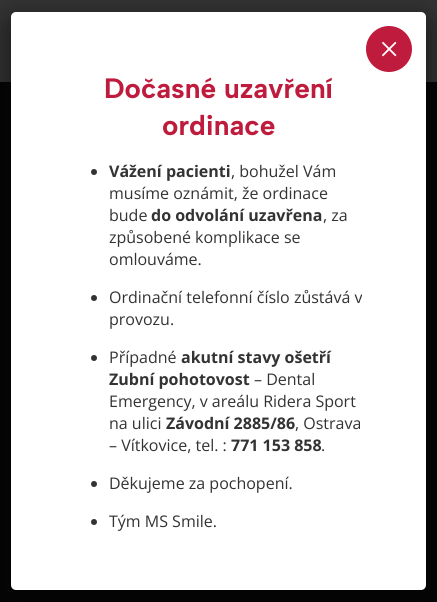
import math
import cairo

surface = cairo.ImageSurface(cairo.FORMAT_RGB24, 437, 602)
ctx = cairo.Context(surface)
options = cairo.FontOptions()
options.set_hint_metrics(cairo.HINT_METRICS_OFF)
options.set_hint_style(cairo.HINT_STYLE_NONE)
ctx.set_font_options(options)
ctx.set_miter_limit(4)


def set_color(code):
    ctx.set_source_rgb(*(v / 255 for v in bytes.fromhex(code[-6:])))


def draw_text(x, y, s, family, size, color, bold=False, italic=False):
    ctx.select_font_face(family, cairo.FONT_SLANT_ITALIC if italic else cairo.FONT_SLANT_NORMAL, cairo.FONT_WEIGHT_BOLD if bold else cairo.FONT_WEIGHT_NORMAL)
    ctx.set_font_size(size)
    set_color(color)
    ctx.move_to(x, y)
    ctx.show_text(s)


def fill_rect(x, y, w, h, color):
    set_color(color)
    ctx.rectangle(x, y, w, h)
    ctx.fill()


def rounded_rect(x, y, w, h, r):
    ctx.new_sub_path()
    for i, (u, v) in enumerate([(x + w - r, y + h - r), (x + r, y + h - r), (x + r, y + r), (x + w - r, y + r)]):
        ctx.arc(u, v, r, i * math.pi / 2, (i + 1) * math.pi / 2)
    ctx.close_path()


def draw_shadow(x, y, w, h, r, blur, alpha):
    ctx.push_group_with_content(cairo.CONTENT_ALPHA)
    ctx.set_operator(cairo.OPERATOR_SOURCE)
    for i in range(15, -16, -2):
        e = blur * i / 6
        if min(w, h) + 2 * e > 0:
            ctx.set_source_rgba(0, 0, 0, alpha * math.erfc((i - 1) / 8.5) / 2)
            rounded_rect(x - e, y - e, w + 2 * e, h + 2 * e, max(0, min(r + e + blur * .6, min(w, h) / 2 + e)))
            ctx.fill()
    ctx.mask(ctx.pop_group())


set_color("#050505")
ctx.paint()
fill_rect(0, 0, 437, 82, "#333333")
set_color("#020202")
draw_shadow(7, 18, 423, 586, 9, 12.5, 0.5)
set_color("#ffffff")
rounded_rect(11, 12, 415, 578, 5)
ctx.fill()
set_color("#bf1c3d")
ctx.arc(389, 49, 23, 0, 2 * math.pi)
ctx.fill()
draw_text(379, 61, "×", "Liberation Serif", 36, "#ffffff")
draw_text(104, 98, "Dočasné uzavření", "Albert Sans", 28, "#bf1c3d", bold=True)
draw_text(162, 135, "ordinace", "Albert Sans", 28, "#bf1c3d", bold=True)
set_color("#333333")
ctx.new_path()
ctx.arc(94, 172, 3, 0, 2 * math.pi)
ctx.fill()
draw_text(109, 177, "Vážení pacienti", "Open Sans", 16, "#333333", bold=True)
draw_text(231, 177, ", bohužel Vám", "Open Sans", 16, "#333333")
draw_text(109, 199, "musíme oznámit, že ordinace", "Open Sans", 16, "#333333")
draw_text(109, 221, "bude", "Open Sans", 16, "#333333")
draw_text(151, 221, "do odvolání uzavřena", "Open Sans", 16, "#333333", bold=True)
draw_text(323, 221, ", za", "Open Sans", 16, "#333333")
draw_text(109, 243, "způsobené komplikace se", "Open Sans", 16, "#333333")
draw_text(109, 265, "omlouváme.", "Open Sans", 16, "#333333")
ctx.new_path()
ctx.arc(94, 298, 3, 0, 2 * math.pi)
ctx.fill()
draw_text(109, 303, "Ordinační telefonní číslo zůstává v", "Open Sans", 16, "#333333")
draw_text(109, 325, "provozu.", "Open Sans", 16, "#333333")
ctx.new_path()
ctx.arc(94, 358, 3, 0, 2 * math.pi)
ctx.fill()
draw_text(109, 363, "Případné", "Open Sans", 16, "#333333")
draw_text(181, 363, "akutní stavy ošetří", "Open Sans", 16, "#333333", bold=True)
draw_text(109, 385, "Zubní pohotovost", "Open Sans", 16, "#333333", bold=True)
draw_text(254, 385, "– Dental", "Open Sans", 16, "#333333")
draw_text(109, 407, "Emergency, v areálu Ridera Sport", "Open Sans", 16, "#333333")
draw_text(109, 429, "na ulici", "Open Sans", 16, "#333333")
draw_text(166, 429, "Závodní 2885/86", "Open Sans", 16, "#333333", bold=True)
draw_text(295, 429, ", Ostrava", "Open Sans", 16, "#333333")
draw_text(109, 451, "– Vítkovice, tel. :", "Open Sans", 16, "#333333")
draw_text(231, 451, "771 153 858", "Open Sans", 16, "#333333", bold=True)
draw_text(321, 451, ".", "Open Sans", 16, "#333333")
ctx.new_path()
ctx.arc(94, 484, 3, 0, 2 * math.pi)
ctx.fill()
draw_text(109, 489, "Děkujeme za pochopení.", "Open Sans", 16, "#333333")
ctx.new_path()
ctx.arc(94, 522, 3, 0, 2 * math.pi)
ctx.fill()
draw_text(109, 527, "Tým MS Smile.", "Open Sans", 16, "#333333")
surface.write_to_png("output.png")
